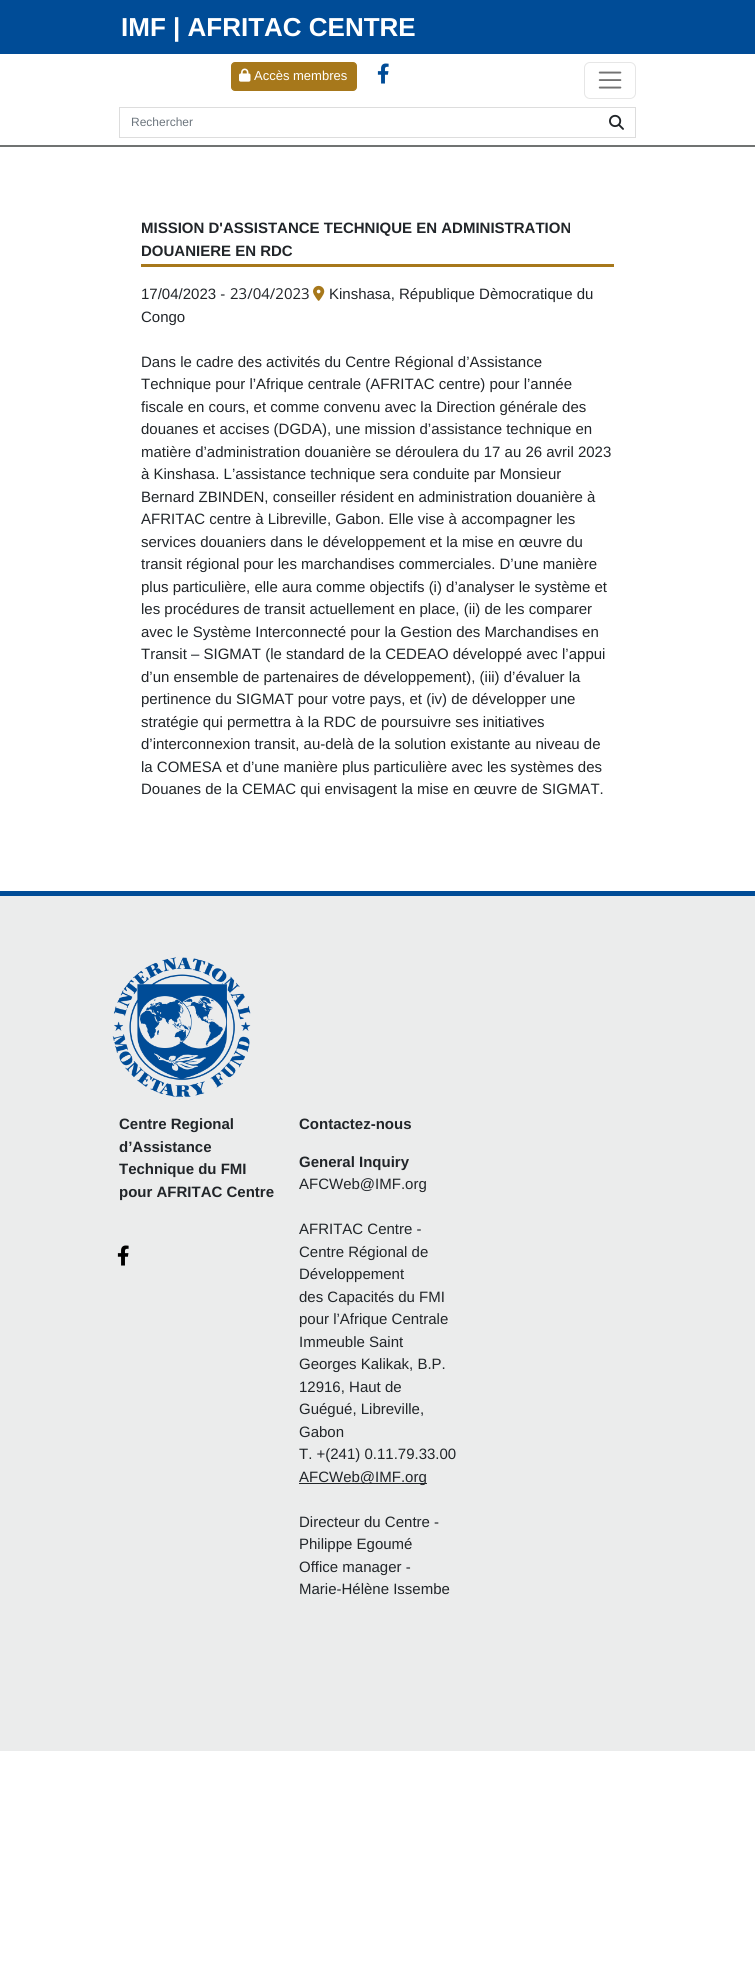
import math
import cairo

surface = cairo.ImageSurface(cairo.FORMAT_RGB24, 755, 1988)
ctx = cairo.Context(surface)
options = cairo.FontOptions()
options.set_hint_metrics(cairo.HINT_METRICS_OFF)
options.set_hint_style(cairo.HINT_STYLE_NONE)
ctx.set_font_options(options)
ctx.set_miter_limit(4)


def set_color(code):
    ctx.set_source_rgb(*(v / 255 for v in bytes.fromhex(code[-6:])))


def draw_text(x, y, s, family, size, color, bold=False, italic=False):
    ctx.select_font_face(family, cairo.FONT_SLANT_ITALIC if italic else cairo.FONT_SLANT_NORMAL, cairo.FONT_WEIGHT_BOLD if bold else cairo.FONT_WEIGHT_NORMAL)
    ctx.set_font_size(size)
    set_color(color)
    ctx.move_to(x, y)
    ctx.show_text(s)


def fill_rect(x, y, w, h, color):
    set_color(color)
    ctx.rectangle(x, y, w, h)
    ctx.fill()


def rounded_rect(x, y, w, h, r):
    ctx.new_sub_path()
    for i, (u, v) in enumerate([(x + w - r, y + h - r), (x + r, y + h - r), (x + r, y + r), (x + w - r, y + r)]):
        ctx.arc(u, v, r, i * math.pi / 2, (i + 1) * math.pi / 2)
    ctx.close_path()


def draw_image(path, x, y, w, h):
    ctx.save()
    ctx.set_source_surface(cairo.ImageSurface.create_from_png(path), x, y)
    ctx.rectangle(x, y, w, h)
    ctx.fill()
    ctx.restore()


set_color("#ffffff")
ctx.paint()
fill_rect(0, 145, 755, 2, "#707372")
fill_rect(0, 0, 755, 54, "#004c97")
draw_text(121, 36, "IMF | AFRITAC CENTRE", "Liberation Sans", 26, "#ffffff", bold=True)
set_color("#a7781b")
rounded_rect(231.5, 62.5, 125, 28, 3.5)
ctx.fill_preserve()
ctx.set_line_width(1)
ctx.stroke()
draw_image("assets/img1.png", 239, 68, 12, 14)
draw_text(254, 80, "Accès membres", "Liberation Sans", 13, "#ffffff")
draw_image("assets/img2.png", 377, 63, 12, 21)
rounded_rect(584.5, 62.5, 51, 36, 5.5)
set_color("#e6e6e6")
ctx.stroke()
draw_image("assets/img3.png", 598, 71, 24, 18)
ctx.rectangle(119.5, 107.5, 516, 30)
set_color("#dddddd")
ctx.stroke()
draw_text(131, 126, "Rechercher", "Liberation Sans", 12, "#6c757d")
draw_image("assets/img4.png", 609, 114, 15, 16)
fill_rect(141, 264, 473, 3, "#a7781b")
draw_text(141, 233, "MISSION D'ASSISTANCE TECHNIQUE EN ADMINISTRATION", "Liberation Sans", 15, "#212529", bold=True)
draw_text(141, 256, "DOUANIERE EN RDC", "Liberation Sans", 15, "#212529", bold=True)
draw_text(141, 299, "17/04/2023 -", "Liberation Sans", 15, "#212529")
draw_text(230, 299, "23/04/2023", "Open Sans", 15, "#212529")
draw_image("assets/img5.png", 313, 285, 12, 16)
draw_text(329, 299, "Kinshasa, République Dèmocratique du", "Liberation Sans", 15, "#212529")
draw_text(141, 322, "Congo", "Liberation Sans", 15, "#212529")
draw_text(141, 367, "Dans le cadre des activités du Centre Régional d’Assistance", "Liberation Sans", 15, "#212529")
draw_text(141, 389, "Technique pour l’Afrique centrale (AFRITAC centre) pour l’année", "Liberation Sans", 15, "#212529")
draw_text(141, 412, "fiscale en cours, et comme convenu avec la Direction générale des", "Liberation Sans", 15, "#212529")
draw_text(141, 434, "douanes et accises (DGDA), une mission d’assistance technique en", "Liberation Sans", 15, "#212529")
draw_text(141, 457, "matière d’administration douanière se déroulera du 17 au 26 avril 2023", "Liberation Sans", 15, "#212529")
draw_text(141, 479, "à Kinshasa. L’assistance technique sera conduite par Monsieur", "Liberation Sans", 15, "#212529")
draw_text(141, 502, "Bernard ZBINDEN, conseiller résident en administration douanière à", "Liberation Sans", 15, "#212529")
draw_text(141, 524, "AFRITAC centre à Libreville, Gabon. Elle vise à accompagner les", "Liberation Sans", 15, "#212529")
draw_text(141, 547, "services douaniers dans le développement et la mise en œuvre du", "Liberation Sans", 15, "#212529")
draw_text(141, 569, "transit régional pour les marchandises commerciales. D’une manière", "Liberation Sans", 15, "#212529")
draw_text(141, 592, "plus particulière, elle aura comme objectifs (i) d’analyser le système et", "Liberation Sans", 15, "#212529")
draw_text(141, 614, "les procédures de transit actuellement en place, (ii) de les comparer", "Liberation Sans", 15, "#212529")
draw_text(141, 637, "avec le Système Interconnecté pour la Gestion des Marchandises en", "Liberation Sans", 15, "#212529")
draw_text(141, 659, "Transit – SIGMAT (le standard de la CEDEAO développé avec l’appui", "Liberation Sans", 15, "#212529")
draw_text(141, 682, "d’un ensemble de partenaires de développement), (iii) d’évaluer la", "Liberation Sans", 15, "#212529")
draw_text(141, 704, "pertinence du SIGMAT pour votre pays, et (iv) de développer une", "Liberation Sans", 15, "#212529")
draw_text(141, 727, "stratégie qui permettra à la RDC de poursuivre ses initiatives", "Liberation Sans", 15, "#212529")
draw_text(141, 749, "d’interconnexion transit, au-delà de la solution existante au niveau de", "Liberation Sans", 15, "#212529")
draw_text(141, 772, "la COMESA et d’une manière plus particulière avec les systèmes des", "Liberation Sans", 15, "#212529")
draw_text(141, 794, "Douanes de la CEMAC qui envisagent la mise en œuvre de SIGMAT.", "Liberation Sans", 15, "#212529")
fill_rect(0, 896, 755, 855, "#ebecec")
fill_rect(0, 891, 755, 5, "#004c97")
draw_image("assets/img6.png", 112, 957, 139, 140)
draw_text(119, 1129, "Centre Regional", "Liberation Sans", 15, "#212529", bold=True)
draw_text(119, 1152, "d’Assistance", "Liberation Sans", 15, "#212529", bold=True)
draw_text(119, 1174, "Technique du FMI", "Liberation Sans", 15, "#212529", bold=True)
draw_text(119, 1197, "pour AFRITAC Centre", "Liberation Sans", 15, "#212529", bold=True)
draw_image("assets/img7.png", 117, 1245, 12, 21)
draw_text(299, 1129, "Contactez-nous", "Liberation Sans", 15, "#212529", bold=True)
draw_text(299, 1167, "General Inquiry", "Liberation Sans", 15, "#212529", bold=True)
draw_text(299, 1189, "AFCWeb@IMF.org", "Liberation Sans", 15, "#212529")
draw_text(299, 1234, "AFRITAC Centre -", "Liberation Sans", 15, "#212529")
draw_text(299, 1257, "Centre Régional de", "Liberation Sans", 15, "#212529")
draw_text(299, 1279, "Développement", "Liberation Sans", 15, "#212529")
draw_text(299, 1302, "des Capacités du FMI", "Liberation Sans", 15, "#212529")
draw_text(299, 1324, "pour l’Afrique Centrale", "Liberation Sans", 15, "#212529")
draw_text(299, 1347, "Immeuble Saint", "Liberation Sans", 15, "#212529")
draw_text(299, 1369, "Georges Kalikak, B.P.", "Liberation Sans", 15, "#212529")
draw_text(299, 1392, "12916, Haut de", "Liberation Sans", 15, "#212529")
draw_text(299, 1414, "Guégué, Libreville,", "Liberation Sans", 15, "#212529")
draw_text(299, 1437, "Gabon", "Liberation Sans", 15, "#212529")
draw_text(299, 1459, "T. +(241) 0.11.79.33.00", "Liberation Sans", 15, "#212529")
fill_rect(299, 1483, 128, 1, "#212529")
draw_text(299, 1482, "AFCWeb@IMF.org", "Liberation Sans", 15, "#212529")
draw_text(299, 1527, "Directeur du Centre -", "Liberation Sans", 15, "#212529")
draw_text(299, 1549, "Philippe Egoumé", "Liberation Sans", 15, "#212529")
draw_text(299, 1572, "Office manager -", "Liberation Sans", 15, "#212529")
draw_text(299, 1594, "Marie-Hélène Issembe", "Liberation Sans", 15, "#212529")
surface.write_to_png("output.png")
